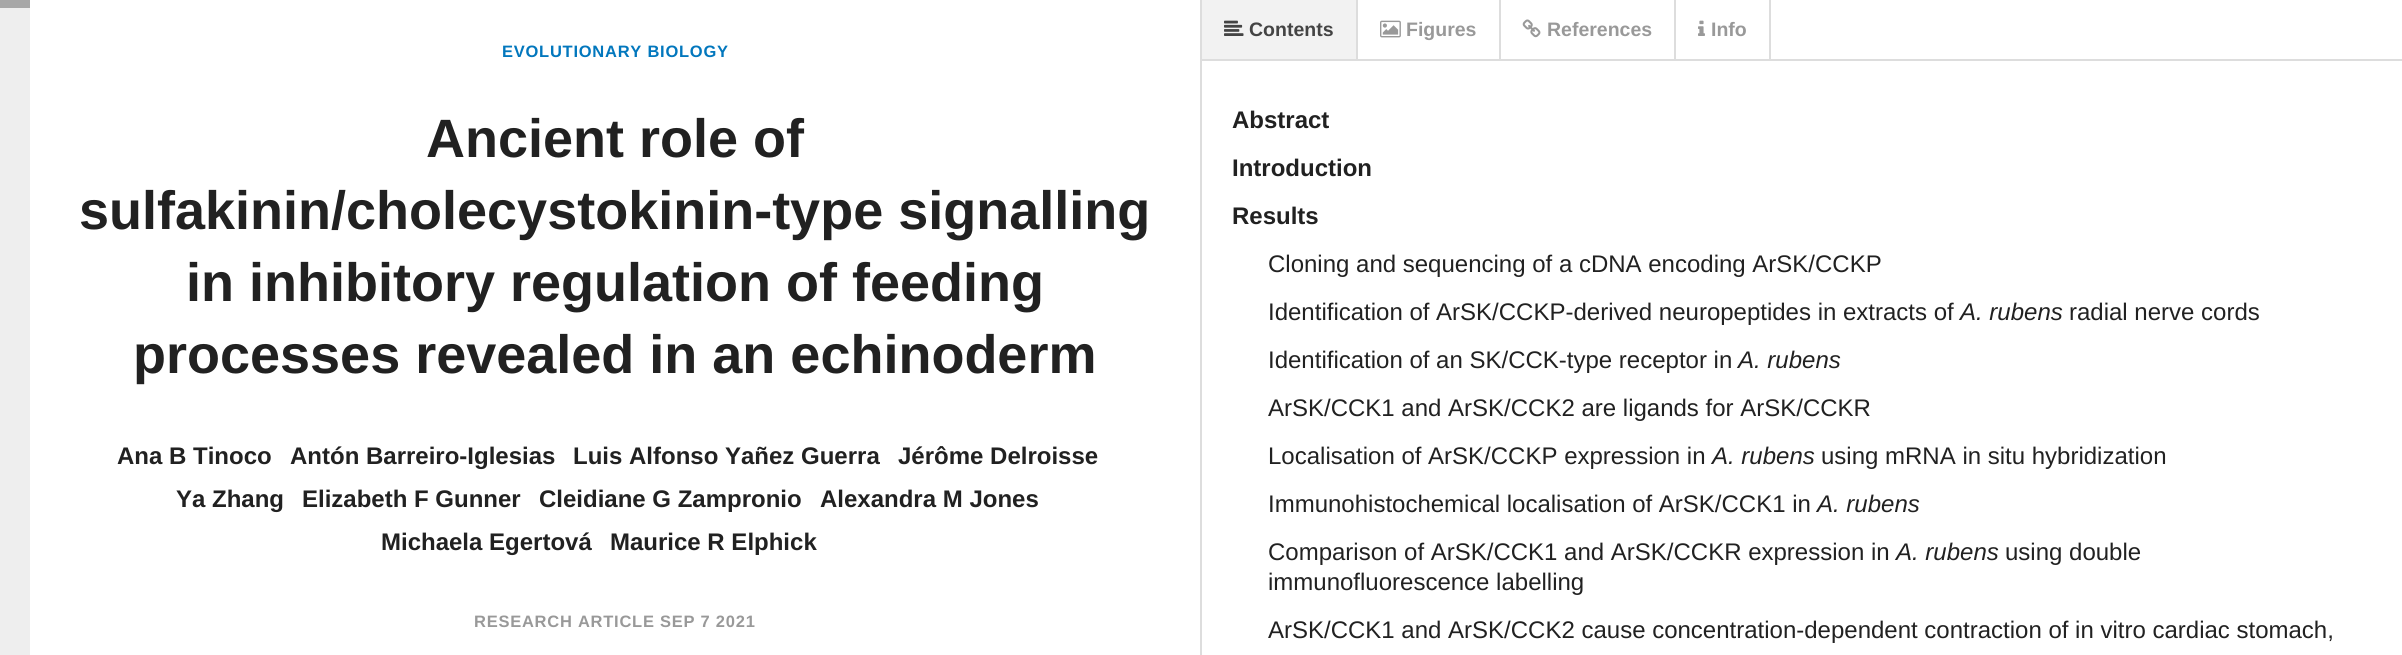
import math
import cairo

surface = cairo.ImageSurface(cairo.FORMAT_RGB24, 2402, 655)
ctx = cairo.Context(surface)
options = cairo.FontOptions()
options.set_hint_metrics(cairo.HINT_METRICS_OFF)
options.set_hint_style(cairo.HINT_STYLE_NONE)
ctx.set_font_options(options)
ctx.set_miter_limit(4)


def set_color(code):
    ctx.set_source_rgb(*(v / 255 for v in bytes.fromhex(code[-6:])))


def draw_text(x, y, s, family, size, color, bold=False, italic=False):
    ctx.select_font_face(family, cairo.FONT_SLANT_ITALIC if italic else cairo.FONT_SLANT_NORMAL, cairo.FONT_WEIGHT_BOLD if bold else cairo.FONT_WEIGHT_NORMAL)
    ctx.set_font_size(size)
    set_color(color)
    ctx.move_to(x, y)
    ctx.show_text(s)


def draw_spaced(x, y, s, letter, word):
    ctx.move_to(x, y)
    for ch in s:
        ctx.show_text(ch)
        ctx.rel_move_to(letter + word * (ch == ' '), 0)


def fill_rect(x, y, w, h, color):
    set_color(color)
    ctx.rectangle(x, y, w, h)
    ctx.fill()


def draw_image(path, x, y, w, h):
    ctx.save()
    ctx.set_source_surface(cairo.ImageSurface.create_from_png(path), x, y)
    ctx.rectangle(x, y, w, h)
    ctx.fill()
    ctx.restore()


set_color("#ffffff")
ctx.paint()
fill_rect(1200, 0, 2, 655, "#dddddd")
fill_rect(0, 8, 30, 647, "#eeeeee")
fill_rect(0, 0, 30, 8, "#a7a7a7")
ctx.select_font_face("Liberation Sans", cairo.FONT_SLANT_NORMAL, cairo.FONT_WEIGHT_BOLD)
ctx.set_font_size(16.5)
set_color("#0277bd")
draw_spaced(502, 57, "EVOLUTIONARY BIOLOGY", 0.75, 0)
draw_text(426, 157, "Ancient role of", "Liberation Sans", 54, "#212121", bold=True)
draw_text(79, 229, "sulfakinin/cholecystokinin-type signalling", "Liberation Sans", 54, "#212121", bold=True)
draw_text(186, 301, "in inhibitory regulation of feeding", "Liberation Sans", 54, "#212121", bold=True)
draw_text(133, 373, "processes revealed in an echinoderm", "Liberation Sans", 54, "#212121", bold=True)
draw_text(117, 464, "Ana B Tinoco", "Liberation Sans", 24, "#212121", bold=True)
draw_text(290, 464, "Antón Barreiro-Iglesias", "Liberation Sans", 24, "#212121", bold=True)
draw_text(573, 464, "Luis Alfonso Yañez Guerra", "Liberation Sans", 24, "#212121", bold=True)
draw_text(898, 464, "Jérôme Delroisse", "Liberation Sans", 24, "#212121", bold=True)
draw_text(176, 507, "Ya Zhang", "Liberation Sans", 24, "#212121", bold=True)
draw_text(302, 507, "Elizabeth F Gunner", "Liberation Sans", 24, "#212121", bold=True)
draw_text(539, 507, "Cleidiane G Zampronio", "Liberation Sans", 24, "#212121", bold=True)
draw_text(820, 507, "Alexandra M Jones", "Liberation Sans", 24, "#212121", bold=True)
draw_text(381, 550, "Michaela Egertová", "Liberation Sans", 24, "#212121", bold=True)
draw_text(610, 550, "Maurice R Elphick", "Liberation Sans", 24, "#212121", bold=True)
ctx.set_font_size(16.5)
set_color("#999999")
draw_spaced(474, 627, "RESEARCH ARTICLE SEP 7 2021", 0.75, 0)
fill_rect(1202, 59, 1200, 2, "#dddddd")
fill_rect(1202, 0, 154, 59, "#f2f2f2")
ctx.save()
ctx.rectangle(1202, 0, 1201, 59)
ctx.clip()
set_color("#dddddd")
ctx.new_path()
ctx.move_to(1358, 0)
ctx.line_to(1358, 64)
ctx.line_to(1356, 60)
ctx.line_to(1356, 0)
ctx.close_path()
ctx.fill()
ctx.restore()
draw_image("assets/img1.png", 1224, 20, 20, 16)
draw_text(1249, 36, "Contents", "Liberation Sans", 19.5, "#444444", bold=True)
fill_rect(1499, 0, 2, 59, "#dddddd")
draw_image("assets/img2.png", 1380, 20, 21, 18)
draw_text(1406, 36, "Figures", "Liberation Sans", 19.5, "#999999", bold=True)
fill_rect(1674, 0, 2, 59, "#dddddd")
draw_image("assets/img3.png", 1522, 19, 19, 19)
draw_text(1547, 36, "References", "Liberation Sans", 19.5, "#999999", bold=True)
fill_rect(1769, 0, 2, 59, "#dddddd")
draw_image("assets/img4.png", 1698, 20, 7, 16)
draw_text(1711, 36, "Info", "Liberation Sans", 19.5, "#999999", bold=True)
draw_text(1232, 128, "Abstract", "Liberation Sans", 24, "#212121", bold=True)
draw_text(1232, 176, "Introduction", "Liberation Sans", 24, "#212121", bold=True)
draw_text(1232, 224, "Results", "Liberation Sans", 24, "#212121", bold=True)
draw_text(1268, 272, "Cloning and sequencing of a cDNA encoding ArSK/CCKP", "Liberation Sans", 24, "#212121")
draw_text(1268, 320, "Identification of ArSK/CCKP-derived neuropeptides in extracts of", "Liberation Sans", 24, "#212121")
draw_text(1960, 320, "A. rubens", "Liberation Sans", 24, "#212121", italic=True)
draw_text(2069, 320, "radial nerve cords", "Liberation Sans", 24, "#212121")
draw_text(1268, 368, "Identification of an SK/CCK-type receptor in", "Liberation Sans", 24, "#212121")
draw_text(1738, 368, "A. rubens", "Liberation Sans", 24, "#212121", italic=True)
draw_text(1268, 416, "ArSK/CCK1 and ArSK/CCK2 are ligands for ArSK/CCKR", "Liberation Sans", 24, "#212121")
draw_text(1268, 464, "Localisation of ArSK/CCKP expression in", "Liberation Sans", 24, "#212121")
draw_text(1712, 464, "A. rubens", "Liberation Sans", 24, "#212121", italic=True)
draw_text(1821, 464, "using mRNA in situ hybridization", "Liberation Sans", 24, "#212121")
draw_text(1268, 512, "Immunohistochemical localisation of ArSK/CCK1 in", "Liberation Sans", 24, "#212121")
draw_text(1817, 512, "A. rubens", "Liberation Sans", 24, "#212121", italic=True)
draw_text(1268, 560, "Comparison of ArSK/CCK1 and ArSK/CCKR expression in", "Liberation Sans", 24, "#212121")
draw_text(1896, 560, "A. rubens", "Liberation Sans", 24, "#212121", italic=True)
draw_text(2005, 560, "using double", "Liberation Sans", 24, "#212121")
draw_text(1268, 590, "immunofluorescence labelling", "Liberation Sans", 24, "#212121")
draw_text(1268, 638, "ArSK/CCK1 and ArSK/CCK2 cause concentration-dependent contraction of in vitro cardiac stomach,", "Liberation Sans", 24, "#212121")
surface.write_to_png("output.png")
